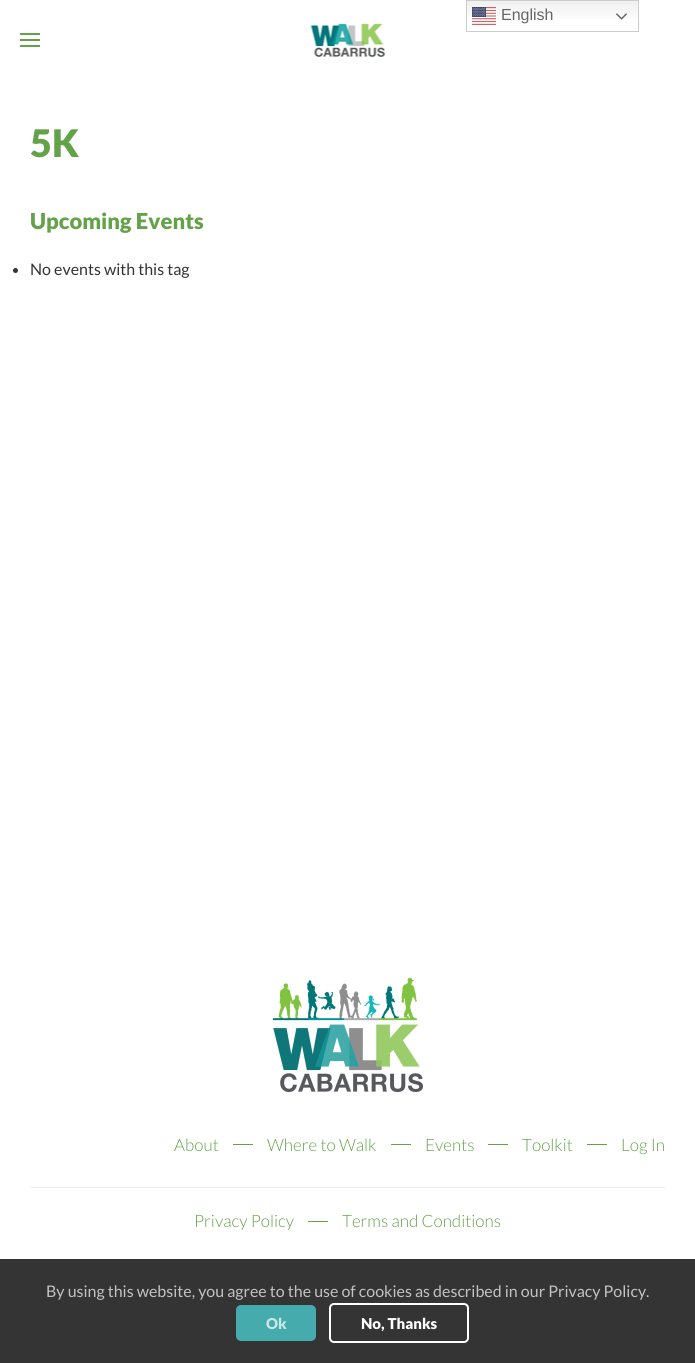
import math
import cairo

surface = cairo.ImageSurface(cairo.FORMAT_RGB24, 695, 1363)
ctx = cairo.Context(surface)
options = cairo.FontOptions()
options.set_hint_metrics(cairo.HINT_METRICS_OFF)
options.set_hint_style(cairo.HINT_STYLE_NONE)
ctx.set_font_options(options)
ctx.set_miter_limit(4)


def set_color(code):
    ctx.set_source_rgb(*(v / 255 for v in bytes.fromhex(code[-6:])))


def draw_text(x, y, s, family, size, color, bold=False, italic=False):
    ctx.select_font_face(family, cairo.FONT_SLANT_ITALIC if italic else cairo.FONT_SLANT_NORMAL, cairo.FONT_WEIGHT_BOLD if bold else cairo.FONT_WEIGHT_NORMAL)
    ctx.set_font_size(size)
    set_color(color)
    ctx.move_to(x, y)
    ctx.show_text(s)


def fill_rect(x, y, w, h, color):
    set_color(color)
    ctx.rectangle(x, y, w, h)
    ctx.fill()


def rounded_rect(x, y, w, h, r):
    ctx.new_sub_path()
    for i, (u, v) in enumerate([(x + w - r, y + h - r), (x + r, y + h - r), (x + r, y + r), (x + w - r, y + r)]):
        ctx.arc(u, v, r, i * math.pi / 2, (i + 1) * math.pi / 2)
    ctx.close_path()


def draw_image(path, x, y, w, h):
    ctx.save()
    ctx.set_source_surface(cairo.ImageSurface.create_from_png(path), x, y)
    ctx.rectangle(x, y, w, h)
    ctx.fill()
    ctx.restore()


set_color("#ffffff")
ctx.paint()
gradient = cairo.LinearGradient(553, 0, 553, 32)
gradient.add_color_stop_rgba(0, 0.937, 0.937, 0.937, 1)
gradient.add_color_stop_rgba(0.7, 1, 1, 1, 1)
ctx.set_source(gradient)
ctx.rectangle(467, 1, 171, 18)
ctx.fill()
ctx.rectangle(466.5, 0.5, 172, 31)
set_color("#cccccc")
ctx.set_line_width(1)
ctx.stroke()
draw_image("assets/img1.png", 472, 7, 24, 18)
draw_text(501, 20, "English", "Liberation Sans", 16, "#666666")
draw_image("assets/img2.png", 616, 13, 11, 7)
fill_rect(20, 33, 20, 2, "#64a249")
fill_rect(20, 39, 20, 2, "#64a249")
fill_rect(20, 45, 20, 2, "#64a249")
draw_image("assets/img3.png", 310, 23, 76, 34)
draw_text(30, 157, "5K", "Lato Black", 38, "#64a249")
draw_text(30, 229, "Upcoming Events", "Lato Black", 22, "#64a249")
set_color("#343434")
ctx.new_path()
ctx.arc(15.5, 270.5, 2.5, 0, 2 * math.pi)
ctx.fill()
draw_text(30, 275, "No events with this tag", "Lato", 16, "#343434")
draw_image("assets/img4.png", 273, 978, 150, 114)
draw_text(174, 1151, "About", "Lato Light", 17, "#64a249")
fill_rect(233, 1144, 20, 1, "#64a249")
draw_text(267, 1151, "Where to Walk", "Lato Light", 17, "#64a249")
fill_rect(391, 1144, 20, 1, "#64a249")
draw_text(425, 1151, "Events", "Lato Light", 17, "#64a249")
fill_rect(488, 1144, 20, 1, "#64a249")
draw_text(522, 1151, "Toolkit", "Lato Light", 17, "#64a249")
fill_rect(587, 1144, 20, 1, "#64a249")
draw_text(621, 1151, "Log In", "Lato Light", 17, "#64a249")
fill_rect(30, 1187, 635, 1, "#eaeaea")
draw_text(194, 1227, "Privacy Policy", "Lato Light", 17, "#64a249")
fill_rect(308, 1221, 20, 1, "#64a249")
draw_text(342, 1227, "Terms and Conditions", "Lato Light", 17, "#64a249")
fill_rect(0, 1259, 695, 104, "#343434")
draw_text(46, 1297, "By using this website, you agree to the use of cookies as described in our Privacy Policy.", "Lato", 16, "#c2c2c2")
set_color("#45abac")
rounded_rect(236, 1305, 80, 36, 5)
ctx.fill()
draw_text(266, 1329, "Ok", "Lato Black", 15, "#c7e6e6")
rounded_rect(330, 1304, 138, 38, 4)
set_color("#ffffff")
ctx.set_line_width(2)
ctx.stroke()
draw_text(361, 1329, "No, Thanks", "Lato Black", 15, "#ffffff")
surface.write_to_png("output.png")
